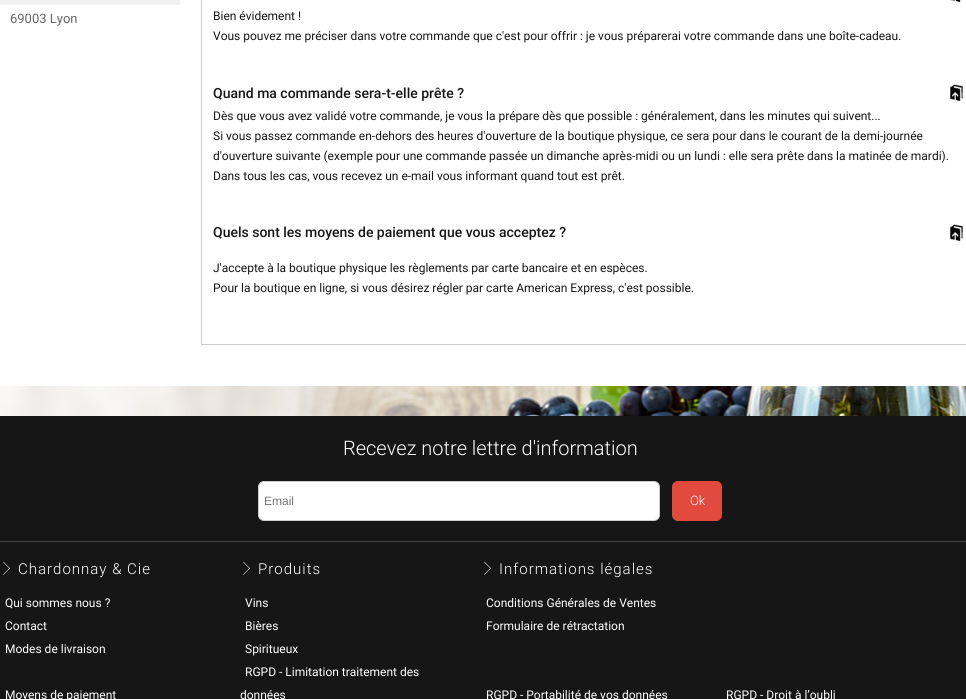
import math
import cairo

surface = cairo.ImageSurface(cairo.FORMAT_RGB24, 966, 699)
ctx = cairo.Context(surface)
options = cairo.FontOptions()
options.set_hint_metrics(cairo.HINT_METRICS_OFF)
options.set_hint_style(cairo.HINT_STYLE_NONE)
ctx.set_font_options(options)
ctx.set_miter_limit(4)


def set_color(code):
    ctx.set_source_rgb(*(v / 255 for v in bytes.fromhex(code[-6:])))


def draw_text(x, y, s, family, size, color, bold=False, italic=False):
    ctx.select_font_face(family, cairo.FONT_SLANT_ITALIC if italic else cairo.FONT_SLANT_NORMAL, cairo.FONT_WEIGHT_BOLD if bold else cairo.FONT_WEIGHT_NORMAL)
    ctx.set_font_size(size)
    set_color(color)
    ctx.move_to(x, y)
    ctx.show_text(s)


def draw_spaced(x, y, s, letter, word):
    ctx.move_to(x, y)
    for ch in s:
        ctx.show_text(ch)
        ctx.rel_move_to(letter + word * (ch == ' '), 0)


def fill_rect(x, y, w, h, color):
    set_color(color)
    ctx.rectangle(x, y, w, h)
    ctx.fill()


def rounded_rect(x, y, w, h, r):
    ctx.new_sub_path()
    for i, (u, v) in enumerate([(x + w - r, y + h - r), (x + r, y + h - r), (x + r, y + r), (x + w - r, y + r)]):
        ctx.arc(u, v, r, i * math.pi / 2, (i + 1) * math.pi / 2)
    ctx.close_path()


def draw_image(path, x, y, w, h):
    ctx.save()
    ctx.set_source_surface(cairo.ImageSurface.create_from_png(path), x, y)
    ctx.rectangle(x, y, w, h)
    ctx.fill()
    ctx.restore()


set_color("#ffffff")
ctx.paint()
draw_image("assets/img1.png", 0, 386, 966, 30)
fill_rect(0, 0, 180, 5, "#f1f1f1")
draw_text(10, 23, "69003 Lyon", "Roboto", 13, "#666666")
ctx.rectangle(201.5, -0.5, 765, 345)
set_color("#cccccc")
ctx.set_line_width(1)
ctx.stroke()
draw_image("assets/img2.png", 950, 0, 11, 2)
draw_text(213, 20, "Bien évidement !", "Roboto", 12, "#161616")
draw_text(213, 40, "Vous pouvez me préciser dans votre commande que c'est pour offrir : je vous préparerai votre commande dans une boîte-cadeau.", "Roboto", 12, "#161616")
draw_text(213, 98, "Quand ma commande sera-t-elle prête ?", "Roboto Medium", 14, "#161616")
draw_image("assets/img3.png", 950, 84, 13, 17)
draw_text(213, 120, "Dès que vous avez validé votre commande, je vous la prépare dès que possible : généralement, dans les minutes qui suivent...", "Roboto", 12, "#161616")
draw_text(213, 140, "Si vous passez commande en-dehors des heures d'ouverture de la boutique physique, ce sera pour dans le courant de la demi-journée", "Roboto", 12, "#161616")
draw_text(213, 160, "d'ouverture suivante (exemple pour une commande passée un dimanche après-midi ou un lundi : elle sera prête dans la matinée de mardi).", "Roboto", 12, "#161616")
draw_text(213, 180, "Dans tous les cas, vous recevez un e-mail vous informant quand tout est prêt.", "Roboto", 12, "#161616")
draw_text(213, 237, "Quels sont les moyens de paiement que vous acceptez ?", "Roboto Medium", 14, "#161616")
draw_image("assets/img3.png", 950, 224, 13, 17)
draw_text(213, 272, "J'accepte à la boutique physique les règlements par carte bancaire et en espèces.", "Roboto", 12, "#161616")
draw_text(213, 292, "Pour la boutique en ligne, si vous désirez régler par carte American Express, c'est possible.", "Roboto", 12, "#161616")
fill_rect(0, 416, 966, 283, "#161616")
fill_rect(0, 541, 966, 1, "#494949")
draw_text(343, 455, "Recevez notre lettre d'information", "Roboto Light", 20, "#ffffff")
rounded_rect(258.5, 481.5, 401, 39, 5.5)
ctx.fill_preserve()
set_color("#cccccc")
ctx.stroke()
draw_text(264, 505, "Email", "Liberation Sans", 12, "#757575")
set_color("#e14a3d")
rounded_rect(672, 481, 50, 40, 6)
ctx.fill()
draw_text(690, 505, "Ok", "Roboto Light", 13, "#ffffff")
draw_image("assets/img4.png", 3, 561, 7, 14)
ctx.set_font_size(15)
draw_spaced(18, 574, "Chardonnay & Cie", 1, 0)
draw_image("assets/img4.png", 243, 561, 7, 14)
draw_spaced(258, 574, "Produits", 1, 0)
draw_image("assets/img4.png", 484, 561, 7, 14)
draw_spaced(499, 574, "Informations légales", 1, 0)
draw_text(5, 607, "Qui sommes nous ?", "Roboto", 12, "#ffffff")
draw_text(245, 607, "Vins", "Roboto", 12, "#ffffff")
draw_text(486, 607, "Conditions Générales de Ventes", "Roboto", 12, "#ffffff")
draw_text(5, 630, "Contact", "Roboto", 12, "#ffffff")
draw_text(245, 630, "Bières", "Roboto", 12, "#ffffff")
draw_text(486, 630, "Formulaire de rétractation", "Roboto", 12, "#ffffff")
draw_text(5, 653, "Modes de livraison", "Roboto", 12, "#ffffff")
draw_text(245, 653, "Spiritueux", "Roboto", 12, "#ffffff")
draw_text(5, 699, "Moyens de paiement", "Roboto", 12, "#ffffff")
draw_text(245, 676, "RGPD - Limitation traitement des", "Roboto", 12, "#ffffff")
draw_text(240, 699, "données", "Roboto", 12, "#ffffff")
draw_text(486, 699, "RGPD - Portabilité de vos données", "Roboto", 12, "#ffffff")
draw_text(726, 699, "RGPD - Droit à l’oubli", "Roboto", 12, "#ffffff")
surface.write_to_png("output.png")
